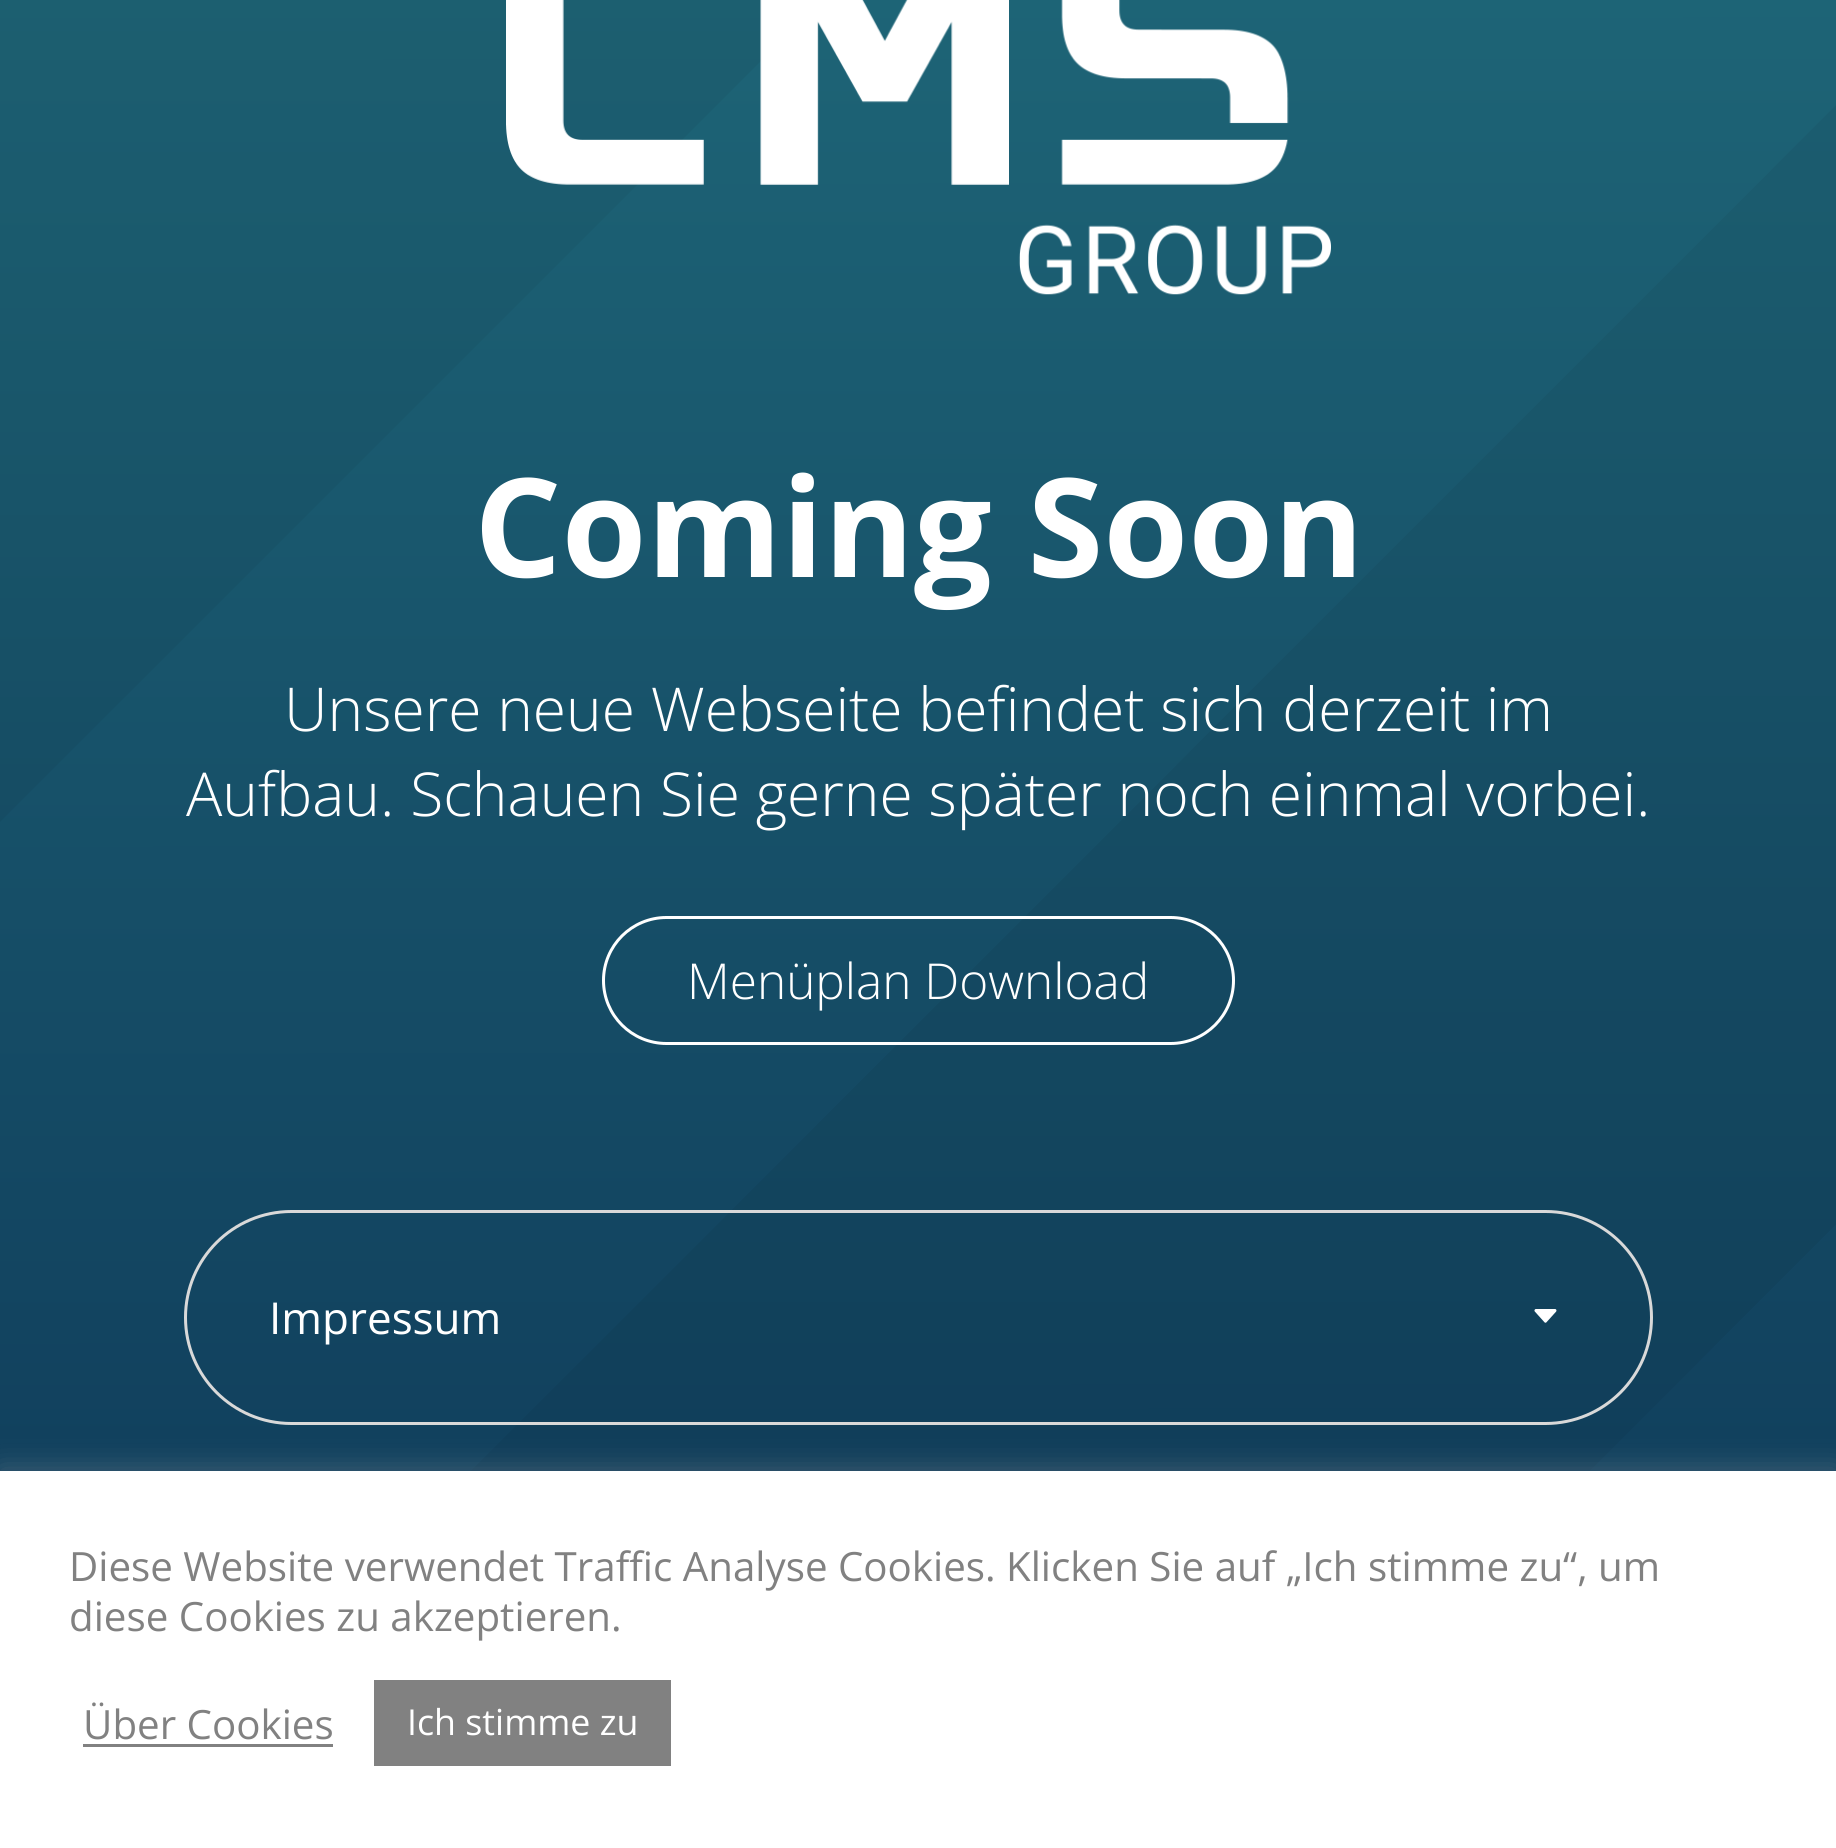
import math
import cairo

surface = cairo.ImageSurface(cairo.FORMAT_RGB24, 1836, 1848)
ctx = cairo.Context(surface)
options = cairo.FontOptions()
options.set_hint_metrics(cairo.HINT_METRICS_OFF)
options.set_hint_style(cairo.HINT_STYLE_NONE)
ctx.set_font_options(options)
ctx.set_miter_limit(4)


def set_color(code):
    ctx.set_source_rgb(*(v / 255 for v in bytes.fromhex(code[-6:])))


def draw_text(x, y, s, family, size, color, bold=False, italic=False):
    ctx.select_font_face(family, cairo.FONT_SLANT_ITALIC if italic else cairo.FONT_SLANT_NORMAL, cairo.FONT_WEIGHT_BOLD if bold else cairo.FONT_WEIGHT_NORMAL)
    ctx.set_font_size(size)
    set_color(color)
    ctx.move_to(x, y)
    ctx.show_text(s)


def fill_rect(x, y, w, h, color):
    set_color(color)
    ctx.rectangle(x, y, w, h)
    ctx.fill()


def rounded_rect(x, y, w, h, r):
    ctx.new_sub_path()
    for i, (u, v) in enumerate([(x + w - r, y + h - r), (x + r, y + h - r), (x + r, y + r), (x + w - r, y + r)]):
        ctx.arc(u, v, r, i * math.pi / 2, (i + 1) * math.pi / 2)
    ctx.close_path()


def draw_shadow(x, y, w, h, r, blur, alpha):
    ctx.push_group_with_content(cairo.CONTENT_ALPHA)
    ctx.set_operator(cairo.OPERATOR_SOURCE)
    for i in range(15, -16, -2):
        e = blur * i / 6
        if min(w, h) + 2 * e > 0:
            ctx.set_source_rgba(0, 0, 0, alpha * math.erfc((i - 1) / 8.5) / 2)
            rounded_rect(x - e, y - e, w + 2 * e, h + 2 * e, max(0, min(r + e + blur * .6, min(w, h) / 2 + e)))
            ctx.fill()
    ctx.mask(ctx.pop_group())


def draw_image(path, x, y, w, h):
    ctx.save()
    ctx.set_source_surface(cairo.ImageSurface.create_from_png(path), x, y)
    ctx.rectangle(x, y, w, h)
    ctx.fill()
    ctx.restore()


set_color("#ffffff")
ctx.paint()
gradient = cairo.LinearGradient(918, -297, 919, 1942)
gradient.add_color_stop_rgba(0, 0.125, 0.42, 0.482, 1)
gradient.add_color_stop_rgba(1, 0.051, 0.208, 0.337, 1)
ctx.set_source(gradient)
ctx.rectangle(0, 0, 1836, 1471)
ctx.fill()
ctx.set_source_rgba(0.039, 0.039, 0.039, 0.05)
ctx.new_path()
ctx.move_to(1119, -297)
ctx.line_to(0, 822)
ctx.line_to(0, -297)
ctx.close_path()
ctx.move_to(1119, 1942)
ctx.line_to(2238, 822)
ctx.line_to(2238, -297)
ctx.line_to(0, 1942)
ctx.close_path()
ctx.fill()
draw_image("assets/img1.png", 506, 0, 825, 295)
draw_text(474, 577, "Coming Soon", "Open Sans", 137.5, "#ffffff", bold=True)
draw_text(284, 731, "Unsere neue Webseite befindet sich derzeit im", "Open Sans Light", 60.5, "#ffffff")
draw_text(186, 816, "Aufbau. Schauen Sie gerne später noch einmal vorbei.", "Open Sans Light", 60.5, "#ffffff")
rounded_rect(603.5, 917.5, 630, 126, 63)
ctx.set_line_width(3)
ctx.stroke()
draw_text(687, 999, "Menüplan Download", "Open Sans Light", 49.5, "#ffffff")
rounded_rect(185.5, 1211.5, 1466, 212, 106)
set_color("#d9d9d9")
ctx.stroke()
draw_text(269, 1334, "Impressum", "Open Sans", 44, "#ffffff")
draw_image("assets/img2.png", 1534, 1309, 23, 14)
set_color("#acabab")
draw_shadow(0, 1469, 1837, 376, 0, 14, 0.3)
fill_rect(0, 1471, 1836, 377, "#ffffff")
draw_text(69, 1581, "Diese Website verwendet Traffic Analyse Cookies.", "Open Sans", 40.3, "#818181")
draw_text(1006, 1581, "Klicken Sie auf „Ich stimme zu“, um", "Open Sans", 40.3, "#818181")
draw_text(69, 1631, "diese Cookies zu akzeptieren.", "Open Sans", 40.3, "#818181")
draw_text(83, 1739, "Über Cookies", "Open Sans", 40.3, "#818181")
fill_rect(83, 1744, 250, 3, "#818181")
fill_rect(374, 1680, 297, 86, "#818181")
draw_text(407, 1735, "Ich stimme zu", "Open Sans", 35.75, "#ffffff")
surface.write_to_png("output.png")
